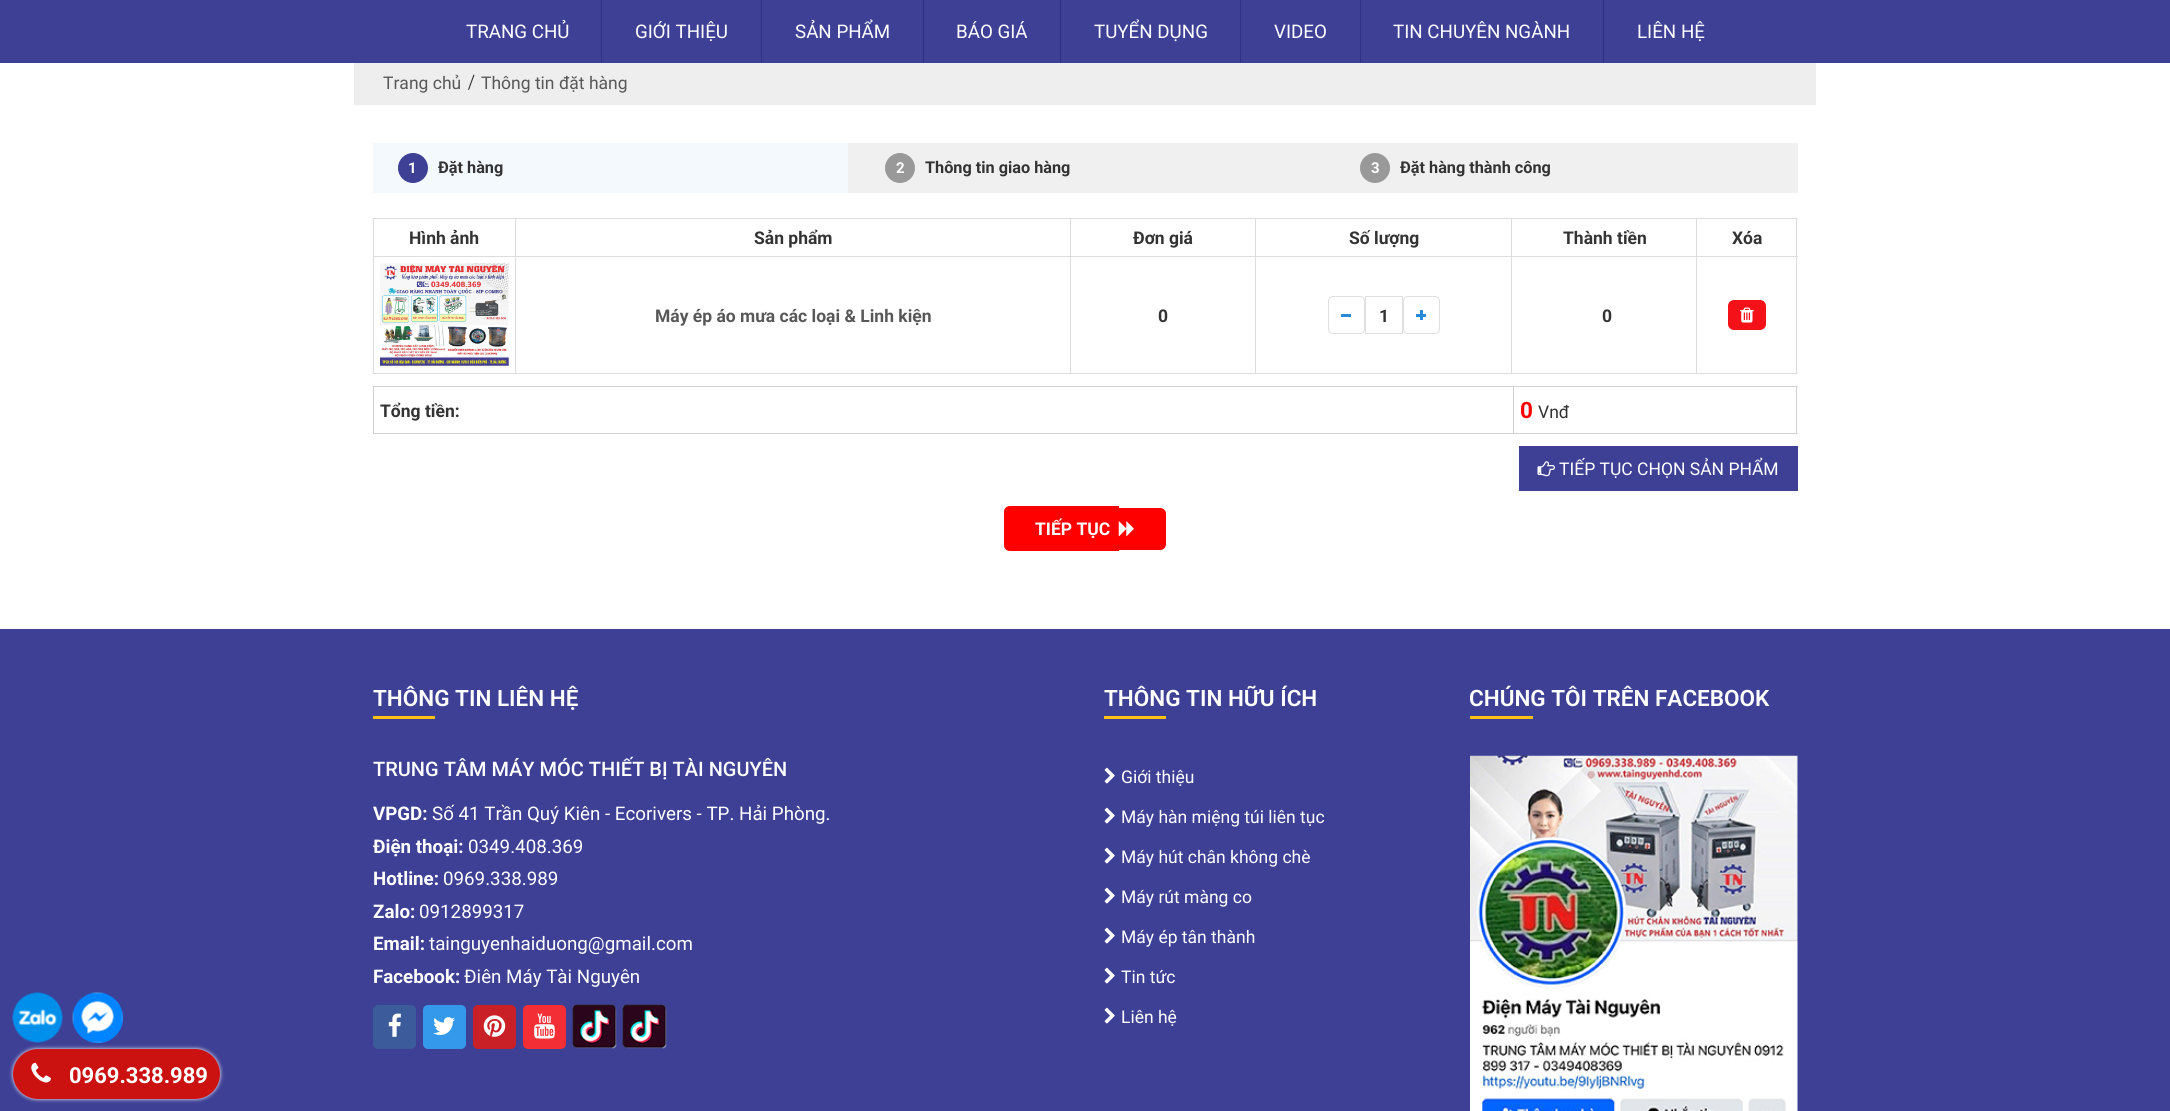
import math
import cairo

surface = cairo.ImageSurface(cairo.FORMAT_RGB24, 2170, 1111)
ctx = cairo.Context(surface)
options = cairo.FontOptions()
options.set_hint_metrics(cairo.HINT_METRICS_OFF)
options.set_hint_style(cairo.HINT_STYLE_NONE)
ctx.set_font_options(options)
ctx.set_miter_limit(4)


def set_color(code):
    ctx.set_source_rgb(*(v / 255 for v in bytes.fromhex(code[-6:])))


def draw_text(x, y, s, family, size, color, bold=False, italic=False):
    ctx.select_font_face(family, cairo.FONT_SLANT_ITALIC if italic else cairo.FONT_SLANT_NORMAL, cairo.FONT_WEIGHT_BOLD if bold else cairo.FONT_WEIGHT_NORMAL)
    ctx.set_font_size(size)
    set_color(color)
    ctx.move_to(x, y)
    ctx.show_text(s)


def fill_rect(x, y, w, h, color):
    set_color(color)
    ctx.rectangle(x, y, w, h)
    ctx.fill()


def rounded_rect(x, y, w, h, r):
    ctx.new_sub_path()
    for i, (u, v) in enumerate([(x + w - r, y + h - r), (x + r, y + h - r), (x + r, y + r), (x + w - r, y + r)]):
        ctx.arc(u, v, r, i * math.pi / 2, (i + 1) * math.pi / 2)
    ctx.close_path()


def draw_shadow(x, y, w, h, r, blur, alpha):
    ctx.push_group_with_content(cairo.CONTENT_ALPHA)
    ctx.set_operator(cairo.OPERATOR_SOURCE)
    for i in range(15, -16, -2):
        e = blur * i / 6
        if min(w, h) + 2 * e > 0:
            ctx.set_source_rgba(0, 0, 0, alpha * math.erfc((i - 1) / 8.5) / 2)
            rounded_rect(x - e, y - e, w + 2 * e, h + 2 * e, max(0, min(r + e + blur * .6, min(w, h) / 2 + e)))
            ctx.fill()
    ctx.mask(ctx.pop_group())


def draw_image(path, x, y, w, h):
    ctx.save()
    ctx.set_source_surface(cairo.ImageSurface.create_from_png(path), x, y)
    ctx.rectangle(x, y, w, h)
    ctx.fill()
    ctx.restore()


set_color("#ffffff")
ctx.paint()
fill_rect(0, 629, 2170, 482, "#3e4095")
draw_image("assets/img1.png", 12, 992, 51, 51)
set_color("#0083fe")
ctx.arc(98, 1018, 25, 0, 2 * math.pi)
ctx.fill()
draw_image("assets/img2.png", 72, 992, 51, 51)
fill_rect(0, 0, 2170, 63, "#3e4095")
fill_rect(601, 0, 1, 63, "#2f3187")
draw_text(466, 38, "TRANG CHỦ", "Roboto", 18.75, "#ffffff")
fill_rect(761, 0, 1, 63, "#2f3187")
draw_text(635, 38, "GIỚI THIỆU", "Roboto", 18.75, "#ffffff")
fill_rect(923, 0, 1, 63, "#2f3187")
draw_text(795, 38, "SẢN PHẨM", "Roboto", 18.75, "#ffffff")
fill_rect(1060, 0, 1, 63, "#2f3187")
draw_text(956, 38, "BÁO GIÁ", "Roboto", 18.75, "#ffffff")
fill_rect(1240, 0, 1, 63, "#2f3187")
draw_text(1094, 38, "TUYỂN DỤNG", "Roboto", 18.75, "#ffffff")
fill_rect(1360, 0, 1, 63, "#2f3187")
draw_text(1274, 38, "VIDEO", "Roboto", 18.75, "#ffffff")
fill_rect(1603, 0, 1, 63, "#2f3187")
draw_text(1393, 38, "TIN CHUYÊN NGÀNH", "Roboto", 18.75, "#ffffff")
draw_text(1637, 38, "LIÊN HỆ", "Roboto", 18.75, "#ffffff")
fill_rect(354, 63, 1462, 42, "#eeeeee")
draw_text(383, 89, "Trang chủ", "Roboto", 17.5, "#585858")
set_color("#333333")
ctx.new_path()
ctx.move_to(473.5, 74.5)
ctx.line_to(474.5, 75)
ctx.line_to(469, 90)
ctx.line_to(468, 89.5)
ctx.close_path()
ctx.fill()
draw_text(481, 89, "Thông tin đặt hàng", "Roboto", 17.5, "#585858")
fill_rect(373, 143, 475, 50, "#f4f9fd")
set_color("#3e4095")
ctx.new_path()
ctx.arc(413, 168, 15, 0, 2 * math.pi)
ctx.fill()
draw_text(408, 173, "1", "Roboto", 15, "#ffffff", bold=True)
draw_text(438, 173, "Đặt hàng", "Roboto", 16.25, "#333333", bold=True)
fill_rect(848, 143, 950, 50, "#f0f0f0")
set_color("#999999")
ctx.new_path()
ctx.arc(900, 168, 15, 0, 2 * math.pi)
ctx.fill()
draw_text(896, 173, "2", "Roboto", 15, "#ffffff", bold=True)
draw_text(925, 173, "Thông tin giao hàng", "Roboto", 16.25, "#333333", bold=True)
set_color("#999999")
ctx.new_path()
ctx.arc(1375, 168, 15, 0, 2 * math.pi)
ctx.fill()
draw_text(1371, 173, "3", "Roboto", 15, "#ffffff", bold=True)
draw_text(1400, 173, "Đặt hàng thành công", "Roboto", 16.25, "#333333", bold=True)
fill_rect(1696, 218, 102, 1, "#dddddd")
fill_rect(1696, 256, 102, 1, "#dddddd")
fill_rect(1796, 256, 1, 118, "#dddddd")
fill_rect(1696, 373, 102, 1, "#dddddd")
fill_rect(1696, 256, 1, 118, "#dddddd")
fill_rect(1511, 256, 187, 1, "#dddddd")
fill_rect(1696, 218, 1, 40, "#dddddd")
fill_rect(1511, 218, 187, 1, "#dddddd")
fill_rect(1511, 373, 187, 1, "#dddddd")
fill_rect(1511, 256, 1, 118, "#dddddd")
fill_rect(1255, 256, 258, 1, "#dddddd")
fill_rect(1511, 218, 1, 40, "#dddddd")
fill_rect(1255, 218, 258, 1, "#dddddd")
fill_rect(1255, 373, 258, 1, "#dddddd")
fill_rect(1255, 256, 1, 118, "#dddddd")
fill_rect(1070, 256, 186, 1, "#dddddd")
fill_rect(1255, 218, 1, 40, "#dddddd")
fill_rect(1070, 218, 186, 1, "#dddddd")
fill_rect(1070, 373, 186, 1, "#dddddd")
fill_rect(1070, 256, 1, 118, "#dddddd")
fill_rect(515, 256, 556, 1, "#dddddd")
fill_rect(1070, 218, 1, 40, "#dddddd")
fill_rect(515, 218, 556, 1, "#dddddd")
fill_rect(515, 373, 556, 1, "#dddddd")
fill_rect(515, 256, 1, 118, "#dddddd")
fill_rect(373, 256, 143, 1, "#dddddd")
fill_rect(515, 218, 1, 40, "#dddddd")
fill_rect(373, 218, 143, 1, "#dddddd")
fill_rect(373, 373, 143, 1, "#dddddd")
fill_rect(373, 256, 1, 118, "#dddddd")
fill_rect(373, 218, 1, 40, "#dddddd")
draw_text(409, 244, "Hình ảnh", "Roboto", 17.5, "#333333", bold=True)
draw_text(754, 244, "Sản phẩm", "Roboto", 17.5, "#333333", bold=True)
draw_text(1133, 244, "Đơn giá", "Roboto", 17.5, "#333333", bold=True)
draw_text(1349, 244, "Số lượng", "Roboto", 17.5, "#333333", bold=True)
draw_text(1563, 244, "Thành tiền", "Roboto", 17.5, "#333333", bold=True)
fill_rect(1796, 218, 1, 40, "#dddddd")
draw_text(1732, 244, "Xóa", "Roboto", 17.5, "#333333", bold=True)
draw_image("assets/img3.png", 380, 263, 129, 103)
draw_text(655, 322, "Máy ép áo mưa các loại & Linh kiện", "Roboto", 17.5, "#585858", bold=True)
draw_text(1158, 322, "0", "Roboto", 17.5, "#333333", bold=True)
rounded_rect(1328.5, 296.5, 36, 37, 4.5)
set_color("#dfdfdf")
ctx.set_line_width(1)
ctx.stroke()
fill_rect(1341, 314, 10, 3, "#288ad6")
ctx.rectangle(1365.5, 296.5, 37, 37)
set_color("#dfdfdf")
ctx.stroke()
draw_text(1379, 322, "1", "Roboto", 17.5, "#333333", bold=True)
rounded_rect(1403.5, 296.5, 36, 37, 4.5)
set_color("#dfdfdf")
ctx.stroke()
fill_rect(1416, 314, 10, 3, "#288ad6")
fill_rect(1420, 310, 3, 10, "#288ad6")
draw_text(1602, 322, "0", "Roboto", 17.5, "#333333", bold=True)
set_color("#f41118")
rounded_rect(1728, 300, 38, 30, 6)
ctx.fill()
draw_image("assets/img4.png", 1740, 307, 14, 16)
fill_rect(373, 386, 1425, 1, "#d2d2d2")
fill_rect(1796, 386, 1, 48, "#d2d2d2")
fill_rect(373, 433, 1425, 1, "#d2d2d2")
fill_rect(373, 386, 1, 48, "#d2d2d2")
draw_text(380, 417, "Tổng tiền:", "Roboto", 17.5, "#333333", bold=True)
fill_rect(1513, 386, 1, 48, "#d2d2d2")
draw_text(1520, 418, "0", "Roboto", 22.5, "#ff0000", bold=True)
draw_text(1538, 418, "Vnđ", "Roboto", 17.5, "#333333")
fill_rect(1519, 446, 279, 45, "#3e4095")
draw_image("assets/img5.png", 1537, 461, 18, 16)
draw_text(1559, 475, "TIẾP TỤC CHỌN SẢN PHẨM", "Roboto", 17.5, "#ffffff")
set_color("#ff0000")
ctx.new_path()
ctx.move_to(1010, 506)
ctx.line_to(1119, 506)
ctx.line_to(1119, 551)
ctx.line_to(1010, 551)
ctx.curve_to(1006.5, 551, 1004, 548.5, 1004, 545)
ctx.line_to(1004, 512)
ctx.curve_to(1004, 508.5, 1006.5, 506, 1010, 506)
ctx.close_path()
ctx.fill()
ctx.new_path()
ctx.move_to(1119, 508)
ctx.line_to(1160, 508)
ctx.curve_to(1163.5, 508, 1166, 510.5, 1166, 514)
ctx.line_to(1166, 544)
ctx.curve_to(1166, 547.5, 1163.5, 550, 1160, 550)
ctx.line_to(1119, 550)
ctx.close_path()
ctx.fill()
draw_text(1035, 535, "TIẾP TỤC", "Roboto", 17.5, "#ffffff", bold=True)
draw_image("assets/img6.png", 1118, 521, 16, 16)
draw_text(373, 706, "THÔNG TIN LIÊN HỆ", "Roboto SemiBold", 22.5, "#ffffff")
fill_rect(373, 716, 62, 3, "#ffc114")
draw_text(373, 776, "TRUNG TÂM MÁY MÓC THIẾT BỊ TÀI NGUYÊN", "Roboto Medium", 20, "#ffffff")
draw_text(373, 820, "VPGD:", "Roboto", 18.75, "#ffffff", bold=True)
draw_text(432, 820, "Số 41 Trần Quý Kiên - Ecorivers - TP. Hải Phòng.", "Roboto", 18.75, "#ffffff")
draw_text(373, 853, "Điện thoại:", "Roboto", 18.75, "#ffffff", bold=True)
draw_text(468, 853, "0349.408.369", "Roboto", 18.75, "#ffffff")
draw_text(373, 885, "Hotline:", "Roboto", 18.75, "#ffffff", bold=True)
draw_text(443, 885, "0969.338.989", "Roboto", 18.75, "#ffffff")
draw_text(373, 918, "Zalo:", "Roboto", 18.75, "#ffffff", bold=True)
draw_text(419, 918, "0912899317", "Roboto", 18.75, "#ffffff")
draw_text(373, 950, "Email:", "Roboto", 18.75, "#ffffff", bold=True)
draw_text(429, 950, "tainguyenhaiduong@gmail.com", "Roboto", 18.75, "#ffffff")
draw_text(373, 983, "Facebook:", "Roboto", 18.75, "#ffffff", bold=True)
draw_text(464, 983, "Điên Máy Tài Nguyên", "Roboto", 18.75, "#ffffff")
set_color("#3b5b9a")
rounded_rect(373, 1005, 43, 44, 5)
ctx.fill()
draw_image("assets/img7.png", 388, 1013, 13, 24)
set_color("#3499ea")
rounded_rect(423, 1005, 43, 44, 5)
ctx.fill()
draw_image("assets/img8.png", 433, 1017, 22, 18)
set_color("#c92027")
rounded_rect(473, 1005, 43, 44, 5)
ctx.fill()
draw_image("assets/img9.png", 483, 1015, 23, 22)
set_color("#f32e35")
rounded_rect(523, 1005, 43, 44, 5)
ctx.fill()
draw_image("assets/img10.png", 534, 1013, 21, 26)
draw_image("assets/img11.png", 572, 1004, 45, 45)
draw_image("assets/img12.png", 622, 1004, 45, 45)
draw_text(1104, 706, "THÔNG TIN HỮU ÍCH", "Roboto SemiBold", 22.5, "#ffffff")
fill_rect(1104, 716, 62, 3, "#ffc114")
draw_image("assets/img13.png", 1104, 767, 11, 17)
draw_text(1121, 783, "Giới thiệu", "Roboto", 17.5, "#ffffff")
draw_image("assets/img13.png", 1104, 807, 11, 17)
draw_text(1121, 823, "Máy hàn miệng túi liên tục", "Roboto", 17.5, "#ffffff")
draw_image("assets/img13.png", 1104, 847, 11, 17)
draw_text(1121, 863, "Máy hút chân không chè", "Roboto", 17.5, "#ffffff")
draw_image("assets/img13.png", 1104, 887, 11, 17)
draw_text(1121, 903, "Máy rút màng co", "Roboto", 17.5, "#ffffff")
draw_image("assets/img13.png", 1104, 927, 11, 17)
draw_text(1121, 943, "Máy ép tân thành", "Roboto", 17.5, "#ffffff")
draw_image("assets/img13.png", 1104, 967, 11, 17)
draw_text(1121, 983, "Tin tức", "Roboto", 17.5, "#ffffff")
draw_image("assets/img13.png", 1104, 1007, 11, 17)
draw_text(1121, 1023, "Liên hệ", "Roboto", 17.5, "#ffffff")
draw_text(1469, 706, "CHÚNG TÔI TRÊN FACEBOOK", "Roboto SemiBold", 22.5, "#ffffff")
fill_rect(1470, 716, 63, 3, "#ffc114")
draw_image("assets/img14.png", 1470, 755, 328, 356)
set_color("#ffffff")
draw_shadow(13, 1049, 207, 50, 25, 2, 1)
set_color("#cc1111")
rounded_rect(13, 1049, 207, 50, 25)
ctx.fill()
draw_image("assets/img15.png", 31, 1062, 20, 21)
draw_text(69, 1083, "0969.338.989", "Roboto", 22, "#ffffff", bold=True)
surface.write_to_png("output.png")
